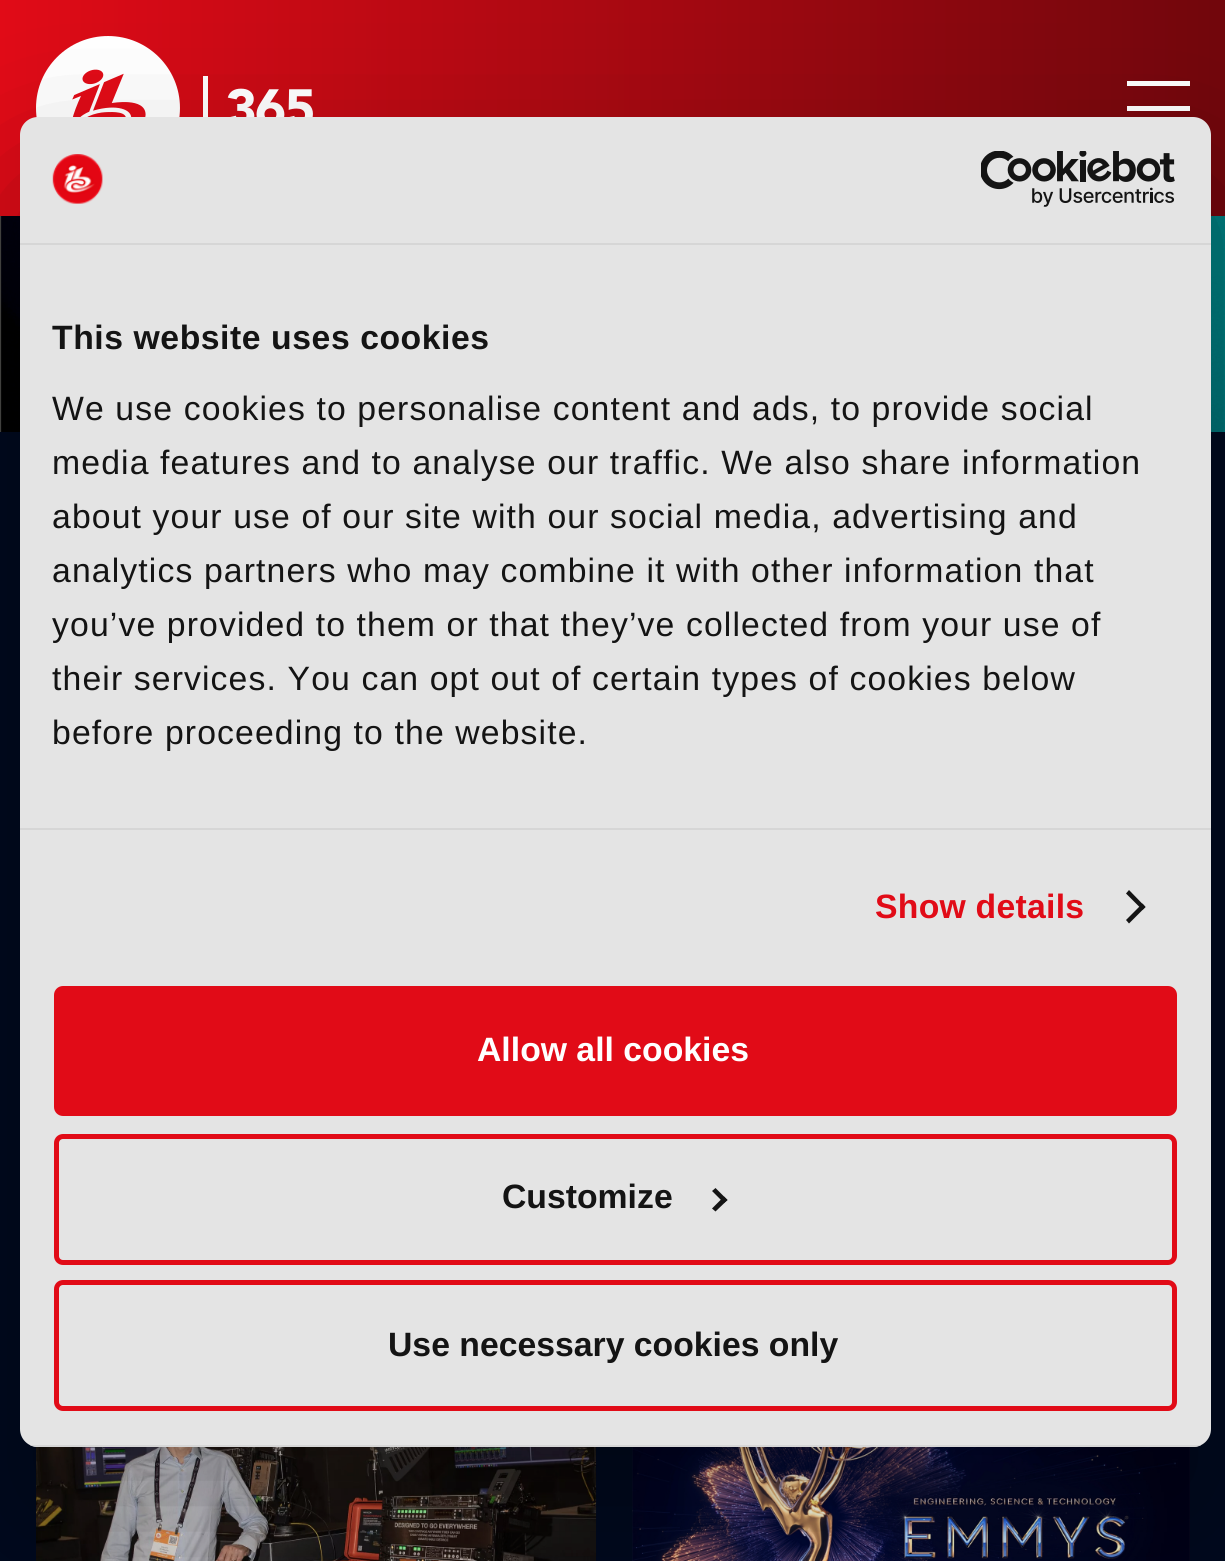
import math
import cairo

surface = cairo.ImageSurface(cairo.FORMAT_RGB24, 1225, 1561)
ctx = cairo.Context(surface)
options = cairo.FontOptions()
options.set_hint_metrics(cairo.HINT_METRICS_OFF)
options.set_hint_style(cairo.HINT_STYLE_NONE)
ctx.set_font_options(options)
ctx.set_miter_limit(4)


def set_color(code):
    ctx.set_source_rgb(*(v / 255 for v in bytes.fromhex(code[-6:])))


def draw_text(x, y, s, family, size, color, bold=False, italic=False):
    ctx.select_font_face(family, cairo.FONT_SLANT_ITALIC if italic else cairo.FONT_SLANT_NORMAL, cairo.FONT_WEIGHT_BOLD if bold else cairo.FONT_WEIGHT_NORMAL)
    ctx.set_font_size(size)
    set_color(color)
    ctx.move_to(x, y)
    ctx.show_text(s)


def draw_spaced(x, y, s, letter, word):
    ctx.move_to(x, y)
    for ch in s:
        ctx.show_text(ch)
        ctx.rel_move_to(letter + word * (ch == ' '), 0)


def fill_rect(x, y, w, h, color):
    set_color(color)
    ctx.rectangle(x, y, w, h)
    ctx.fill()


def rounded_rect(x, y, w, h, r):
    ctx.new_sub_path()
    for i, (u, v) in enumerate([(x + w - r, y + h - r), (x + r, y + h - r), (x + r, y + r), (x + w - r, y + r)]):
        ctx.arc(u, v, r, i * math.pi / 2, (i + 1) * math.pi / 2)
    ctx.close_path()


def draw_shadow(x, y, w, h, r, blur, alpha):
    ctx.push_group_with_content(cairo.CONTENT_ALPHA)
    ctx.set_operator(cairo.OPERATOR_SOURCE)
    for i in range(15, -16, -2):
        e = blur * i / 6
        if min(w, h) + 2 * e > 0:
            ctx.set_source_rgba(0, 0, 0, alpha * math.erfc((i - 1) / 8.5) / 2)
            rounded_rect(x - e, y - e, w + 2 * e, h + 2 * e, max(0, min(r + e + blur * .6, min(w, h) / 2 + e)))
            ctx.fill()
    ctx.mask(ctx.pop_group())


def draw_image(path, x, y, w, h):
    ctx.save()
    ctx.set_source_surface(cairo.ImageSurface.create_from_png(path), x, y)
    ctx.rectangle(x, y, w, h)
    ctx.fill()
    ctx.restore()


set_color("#00091e")
ctx.paint()
gradient = cairo.LinearGradient(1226, 108, 0, 108)
gradient.add_color_stop_rgba(0, 0.443, 0.024, 0.047, 1)
gradient.add_color_stop_rgba(1, 0.882, 0.043, 0.09, 1)
ctx.set_source(gradient)
ctx.rectangle(0, 0, 1225, 216)
ctx.fill()
draw_image("assets/img1.png", 36, 36, 277, 82)
fill_rect(1127, 106, 63, 5, "#ffffff")
fill_rect(1127, 81, 63, 5, "#ffffff")
fill_rect(0, 216, 2, 216, "#484846")
draw_image("assets/img2.png", 1, 216, 1224, 216)
draw_image("assets/img3.png", 36, 1446, 561, 115)
draw_image("assets/img4.png", 632, 1447, 558, 114)
set_color("#000000")
draw_shadow(20, 189, 1191, 1330, 18, 76.5, 0.3)
set_color("#e4e4e4")
rounded_rect(20, 117, 1191, 1330, 18)
ctx.fill()
fill_rect(20, 243, 1191, 2, "#d6d6d6")
draw_image("assets/img5.png", 52, 154, 51, 50)
draw_image("assets/img6.png", 981, 151, 194, 56)
fill_rect(20, 828, 1191, 2, "#d6d6d6")
ctx.select_font_face("Liberation Sans", cairo.FONT_SLANT_NORMAL, cairo.FONT_WEIGHT_BOLD)
ctx.set_font_size(33.75)
set_color("#141414")
draw_spaced(52, 349, "This website uses cookies", 0.55, 0)
ctx.select_font_face("Liberation Sans")
draw_spaced(52, 420, "We use cookies to personalise content and ads, to provide social", 1.12, 0)
draw_spaced(52, 474, "media features and to analyse our traffic. We also share information", 1.12, 0)
draw_spaced(52, 528, "about your use of our site with our social media, advertising and", 1.12, 0)
draw_spaced(52, 582, "analytics partners who may combine it with other information that", 1.12, 0)
draw_spaced(52, 636, "you’ve provided to them or that they’ve collected from your use of", 1.12, 0)
draw_spaced(52, 690, "their services. You can opt out of certain types of cookies below", 1.12, 0)
draw_spaced(52, 744, "before proceeding to the website.", 1.12, 0)
ctx.select_font_face("Liberation Sans", cairo.FONT_SLANT_NORMAL, cairo.FONT_WEIGHT_BOLD)
set_color("#e10b17")
draw_spaced(875, 918, "Show details", 0.25, 0)
set_color("#141414")
ctx.new_path()
ctx.move_to(1129, 890)
ctx.line_to(1145.5, 907)
ctx.line_to(1142.5, 910)
ctx.line_to(1126, 893.5)
ctx.close_path()
ctx.fill()
ctx.new_path()
ctx.move_to(1142.5, 903.5)
ctx.line_to(1145.5, 907)
ctx.line_to(1129, 923.5)
ctx.line_to(1126, 920)
ctx.close_path()
ctx.fill()
ctx.save()
rounded_rect(20, 117, 1191, 1330, 18)
ctx.clip()
fill_rect(30, 1445, 1171, 2, "#d6d6d6")
ctx.restore()
set_color("#e10b17")
rounded_rect(56.5, 988.5, 1118, 125, 6.5)
ctx.fill_preserve()
ctx.set_line_width(5)
ctx.stroke()
draw_text(477, 1061, "Allow all cookies", "Liberation Sans", 33.75, "#ffffff", bold=True)
rounded_rect(56.5, 1136.5, 1118, 126, 6.5)
set_color("#e10b17")
ctx.stroke()
draw_text(502, 1208, "Customize", "Liberation Sans", 33.75, "#141414", bold=True)
ctx.new_path()
ctx.move_to(715.5, 1188)
ctx.line_to(727.5, 1200)
ctx.line_to(724, 1203)
ctx.line_to(712, 1191)
ctx.close_path()
ctx.fill()
ctx.new_path()
ctx.move_to(724, 1196.5)
ctx.line_to(727.5, 1200)
ctx.line_to(715.5, 1211.5)
ctx.line_to(712, 1208.5)
ctx.close_path()
ctx.fill()
rounded_rect(56.5, 1282.5, 1118, 126, 6.5)
set_color("#e10b17")
ctx.stroke()
draw_text(388, 1356, "Use necessary cookies only", "Liberation Sans", 33.75, "#141414", bold=True)
surface.write_to_png("output.png")
